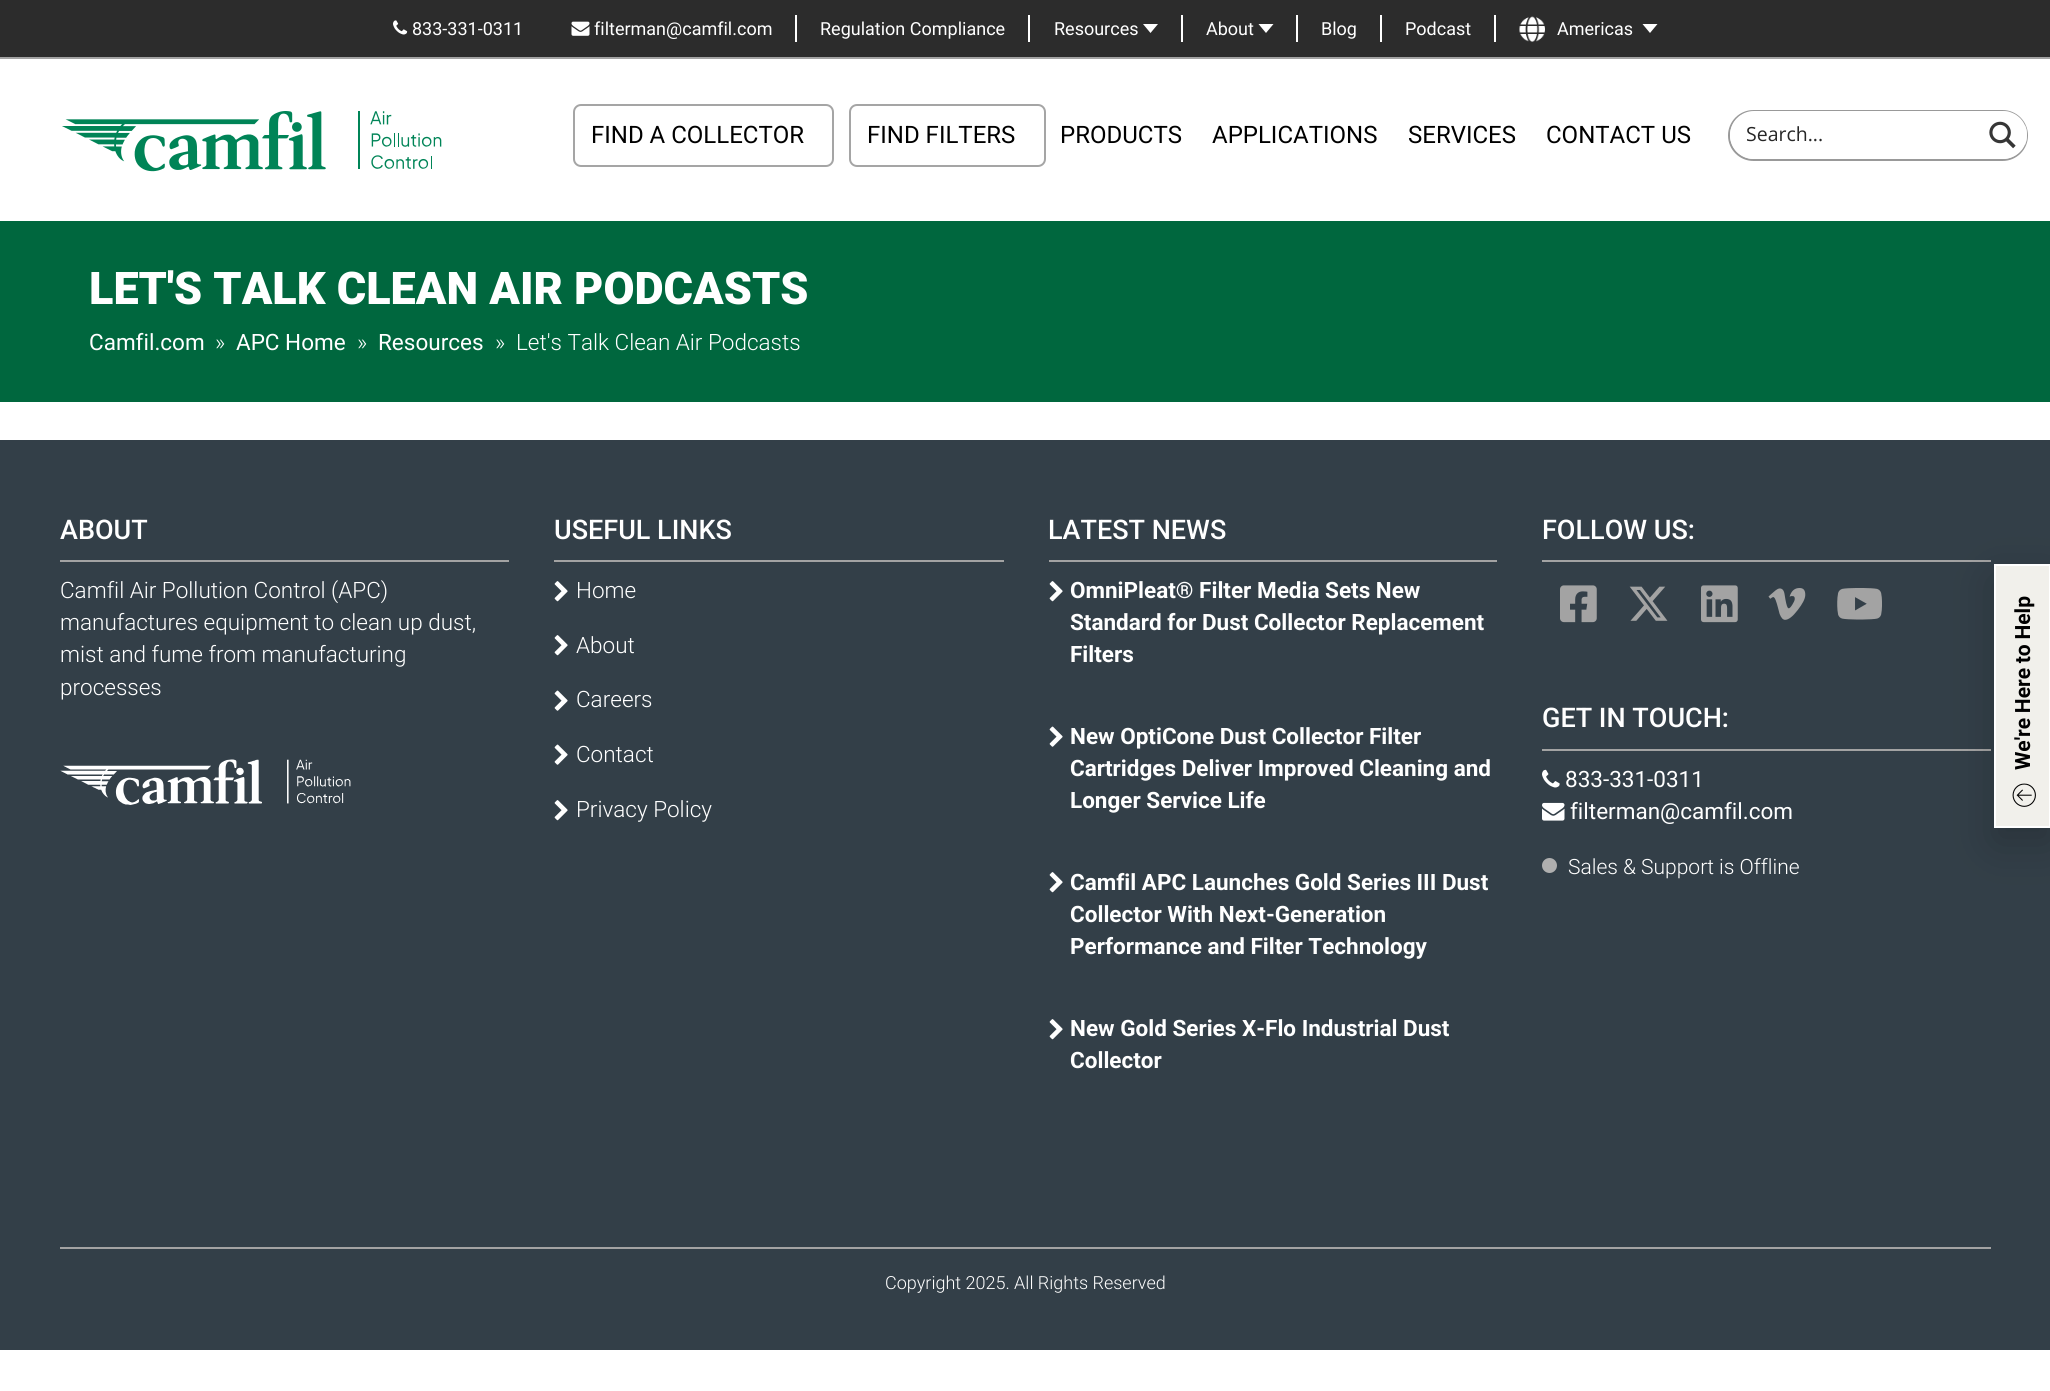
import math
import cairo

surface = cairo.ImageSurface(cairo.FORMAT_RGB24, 2050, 1391)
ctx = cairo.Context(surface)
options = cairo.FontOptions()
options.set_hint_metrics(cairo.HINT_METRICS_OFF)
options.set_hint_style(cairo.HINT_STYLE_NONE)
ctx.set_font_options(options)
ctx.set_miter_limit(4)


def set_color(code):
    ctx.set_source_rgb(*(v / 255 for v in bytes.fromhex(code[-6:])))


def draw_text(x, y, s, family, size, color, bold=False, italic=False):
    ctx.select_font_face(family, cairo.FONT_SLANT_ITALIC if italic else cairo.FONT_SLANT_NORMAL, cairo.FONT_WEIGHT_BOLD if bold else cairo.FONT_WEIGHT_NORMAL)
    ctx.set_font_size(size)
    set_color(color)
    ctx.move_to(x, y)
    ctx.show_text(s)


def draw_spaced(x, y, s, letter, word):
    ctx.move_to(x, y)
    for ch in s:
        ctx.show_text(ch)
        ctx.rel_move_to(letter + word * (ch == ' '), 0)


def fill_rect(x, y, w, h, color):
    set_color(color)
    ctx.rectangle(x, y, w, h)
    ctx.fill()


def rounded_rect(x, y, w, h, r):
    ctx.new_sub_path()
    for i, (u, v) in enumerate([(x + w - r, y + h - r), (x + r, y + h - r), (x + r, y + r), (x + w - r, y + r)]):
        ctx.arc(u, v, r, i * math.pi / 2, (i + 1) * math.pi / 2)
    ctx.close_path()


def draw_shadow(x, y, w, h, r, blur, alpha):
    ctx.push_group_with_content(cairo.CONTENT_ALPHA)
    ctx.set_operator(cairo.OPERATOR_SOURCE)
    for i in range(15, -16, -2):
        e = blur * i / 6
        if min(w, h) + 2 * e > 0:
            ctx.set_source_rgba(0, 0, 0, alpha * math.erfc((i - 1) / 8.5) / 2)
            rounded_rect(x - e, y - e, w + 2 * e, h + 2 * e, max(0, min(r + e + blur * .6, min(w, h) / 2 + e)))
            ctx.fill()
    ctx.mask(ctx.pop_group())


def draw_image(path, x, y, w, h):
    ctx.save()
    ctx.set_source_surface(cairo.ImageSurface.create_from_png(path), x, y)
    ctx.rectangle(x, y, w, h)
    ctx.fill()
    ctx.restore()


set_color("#ffffff")
ctx.paint()
fill_rect(0, 0, 2050, 57, "#2c2c2c")
fill_rect(0, 57, 2050, 2, "#a3a3a3")
draw_image("assets/img1.png", 393, 20, 15, 15)
draw_text(412, 35, "833-331-0311", "Roboto", 18, "#ffffff")
draw_image("assets/img2.png", 571, 21, 19, 15)
draw_text(594, 35, "filterman@camfil.com", "Roboto", 18, "#ffffff")
fill_rect(795, 15, 2, 27, "#ffffff")
draw_text(820, 35, "Regulation Compliance", "Roboto", 18, "#ffffff")
fill_rect(1028, 15, 2, 27, "#ffffff")
draw_text(1054, 35, "Resources", "Roboto", 18, "#ffffff")
ctx.new_path()
ctx.move_to(1143, 24)
ctx.line_to(1158, 24)
ctx.line_to(1150.5, 33)
ctx.close_path()
ctx.fill()
fill_rect(1181, 15, 2, 27, "#ffffff")
draw_text(1206, 35, "About", "Roboto", 18, "#ffffff")
ctx.new_path()
ctx.move_to(1258.5, 24)
ctx.line_to(1273.5, 24)
ctx.line_to(1266, 33)
ctx.close_path()
ctx.fill()
fill_rect(1296, 15, 2, 27, "#ffffff")
draw_text(1321, 35, "Blog", "Roboto", 18, "#ffffff")
fill_rect(1380, 15, 2, 27, "#ffffff")
draw_text(1405, 35, "Podcast", "Roboto", 18, "#ffffff")
fill_rect(1494, 15, 2, 27, "#ffffff")
draw_image("assets/img3.png", 1519, 16, 26, 26)
draw_text(1557, 35, "Americas", "Roboto", 18, "#ffffff")
ctx.new_path()
ctx.move_to(1642.5, 24)
ctx.line_to(1657.5, 24)
ctx.line_to(1650, 33)
ctx.close_path()
ctx.fill()
draw_image("assets/img4.png", 62, 111, 380, 61)
rounded_rect(574, 105, 259, 61, 7)
set_color("#a5a5a5")
ctx.stroke()
draw_text(591, 143, "FIND A COLLECTOR", "Roboto", 24, "#000000")
rounded_rect(850, 105, 195, 61, 7)
set_color("#a5a5a5")
ctx.stroke()
draw_text(867, 143, "FIND FILTERS", "Roboto", 24, "#000000")
draw_text(1060, 143, "PRODUCTS", "Roboto", 24, "#000000")
draw_text(1212, 143, "APPLICATIONS", "Roboto", 24, "#000000")
draw_text(1408, 143, "SERVICES", "Roboto", 24, "#000000")
draw_text(1546, 143, "CONTACT US", "Roboto", 24, "#000000")
rounded_rect(1729, 111, 298, 49, 24.5)
set_color("#999999")
ctx.stroke()
set_color("#ffffff")
rounded_rect(1730, 111, 297, 48, 24)
ctx.fill()
draw_text(1746, 141, "Search...", "Open Sans", 19.5, "#262626")
ctx.save()
ctx.rectangle(1979, 111, 48, 48)
ctx.clip()
ctx.set_source_rgba(1, 1, 1, 0.64)
ctx.set_fill_rule(cairo.FILL_RULE_EVEN_ODD)
ctx.new_path()
ctx.move_to(1977, 112)
ctx.line_to(1977, 159)
ctx.line_to(1830, 159)
ctx.line_to(1830, 111)
ctx.line_to(2003, 111)
ctx.line_to(2010, 112)
ctx.close_path()
ctx.move_to(2025, 145)
ctx.curve_to(2028, 139, 2028, 131, 2025, 125)
ctx.close_path()
ctx.fill()
ctx.restore()
draw_image("assets/img5.png", 1989, 121, 27, 28)
fill_rect(0, 221, 2050, 181, "#00673e")
draw_text(89, 304, "LET'S TALK CLEAN AIR PODCASTS", "Roboto Black", 45, "#ffffff")
draw_text(89, 350, "Camfil.com", "Roboto", 22.5, "#ffffff")
draw_text(215, 350, "»", "Roboto Light", 22.5, "#ffffff")
draw_text(236, 350, "APC Home", "Roboto", 22.5, "#ffffff")
draw_text(357, 350, "»", "Roboto Light", 22.5, "#ffffff")
draw_text(378, 350, "Resources", "Roboto", 22.5, "#ffffff")
draw_text(495, 350, "»", "Roboto Light", 22.5, "#ffffff")
draw_text(516, 350, "Let's Talk Clean Air Podcasts", "Roboto Light", 22.5, "#ffffff")
fill_rect(0, 440, 2050, 910, "#333f48")
fill_rect(60, 560, 449, 2, "#a3a3a3")
draw_text(60, 539, "ABOUT", "Roboto Medium", 27, "#ffffff")
draw_text(60, 598, "Camfil Air Pollution Control (APC)", "Roboto Light", 22.5, "#ffffff")
draw_text(60, 630, "manufactures equipment to clean up dust,", "Roboto Light", 22.5, "#ffffff")
draw_text(60, 662, "mist and fume from manufacturing", "Roboto Light", 22.5, "#ffffff")
draw_text(60, 695, "processes", "Roboto Light", 22.5, "#ffffff")
draw_image("assets/img6.png", 60, 759, 291, 46)
fill_rect(554, 560, 450, 2, "#a3a3a3")
draw_text(554, 539, "USEFUL LINKS", "Roboto Medium", 27, "#ffffff")
draw_image("assets/img7.png", 554, 581, 14, 21)
draw_text(576, 598, "Home", "Roboto Light", 22.5, "#ffffff")
draw_image("assets/img7.png", 554, 635, 14, 21)
draw_text(576, 653, "About", "Roboto Light", 22.5, "#ffffff")
draw_image("assets/img8.png", 554, 690, 14, 21)
draw_text(576, 707, "Careers", "Roboto Light", 22.5, "#ffffff")
draw_image("assets/img8.png", 554, 744, 14, 21)
draw_text(576, 762, "Contact", "Roboto Light", 22.5, "#ffffff")
draw_image("assets/img7.png", 554, 800, 14, 21)
draw_text(576, 817, "Privacy Policy", "Roboto Light", 22.5, "#ffffff")
fill_rect(1049, 560, 448, 2, "#a3a3a3")
draw_text(1048, 539, "LATEST NEWS", "Roboto Medium", 27, "#ffffff")
draw_image("assets/img7.png", 1049, 581, 14, 21)
draw_text(1070, 598, "OmniPleat® Filter Media Sets New", "Roboto", 22.5, "#ffffff", bold=True)
draw_text(1070, 630, "Standard for Dust Collector Replacement", "Roboto", 22.5, "#ffffff", bold=True)
draw_text(1070, 662, "Filters", "Roboto", 22.5, "#ffffff", bold=True)
draw_image("assets/img8.png", 1049, 726, 14, 21)
draw_text(1070, 744, "New OptiCone Dust Collector Filter", "Roboto", 22.5, "#ffffff", bold=True)
draw_text(1070, 776, "Cartridges Deliver Improved Cleaning and", "Roboto", 22.5, "#ffffff", bold=True)
draw_text(1070, 808, "Longer Service Life", "Roboto", 22.5, "#ffffff", bold=True)
draw_image("assets/img7.png", 1049, 872, 14, 21)
draw_text(1070, 890, "Camfil APC Launches Gold Series III Dust", "Roboto", 22.5, "#ffffff", bold=True)
draw_text(1070, 922, "Collector With Next-Generation", "Roboto", 22.5, "#ffffff", bold=True)
draw_text(1070, 954, "Performance and Filter Technology", "Roboto", 22.5, "#ffffff", bold=True)
draw_image("assets/img7.png", 1049, 1019, 14, 21)
draw_text(1070, 1036, "New Gold Series X-Flo Industrial Dust", "Roboto", 22.5, "#ffffff", bold=True)
draw_text(1070, 1068, "Collector", "Roboto", 22.5, "#ffffff", bold=True)
fill_rect(1542, 560, 449, 2, "#a3a3a3")
draw_text(1542, 539, "FOLLOW US:", "Roboto Medium", 27, "#ffffff")
draw_image("assets/img9.png", 1560, 585, 37, 38)
draw_image("assets/img10.png", 1629, 586, 39, 35)
draw_image("assets/img11.png", 1701, 585, 37, 38)
draw_image("assets/img12.png", 1768, 588, 38, 32)
draw_image("assets/img13.png", 1837, 588, 45, 32)
fill_rect(1542, 749, 449, 2, "#a3a3a3")
draw_text(1542, 727, "GET IN TOUCH:", "Roboto Medium", 27, "#ffffff")
draw_image("assets/img14.png", 1542, 769, 18, 19)
draw_text(1565, 787, "833-331-0311", "Roboto", 22.5, "#ffffff")
draw_image("assets/img15.png", 1542, 802, 23, 19)
draw_text(1570, 819, "filterman@camfil.com", "Roboto", 22.5, "#ffffff")
set_color("#afafaf")
ctx.new_path()
ctx.arc(1549.5, 865.5, 7.5, 0, 2 * math.pi)
ctx.fill()
draw_text(1568, 874, "Sales & Support is Offline", "Roboto Light", 21, "#ffffff")
fill_rect(60, 1247, 1931, 2, "#a3a3a3")
draw_text(885, 1289, "Copyright 2025. All Rights Reserved", "Roboto Light", 18, "#ffffff")
set_color("#000000")
draw_shadow(1994, 579, 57, 264, 0, 22.5, 0.2)
set_color("#f1f0eb")
ctx.rectangle(1995, 565, 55, 262)
ctx.fill_preserve()
set_color("#ffffff")
ctx.stroke()
ctx.select_font_face("Roboto", cairo.FONT_SLANT_NORMAL, cairo.FONT_WEIGHT_BOLD)
ctx.set_font_size(21)
set_color("#000000")
ctx.save()
ctx.translate(2030, 770)
ctx.rotate(-90 * math.pi / 180)
draw_spaced(0, 0, "We're Here to Help", 0, -0.5)
ctx.restore()
draw_image("assets/img16.png", 2012, 783, 24, 24)
surface.write_to_png("output.png")
